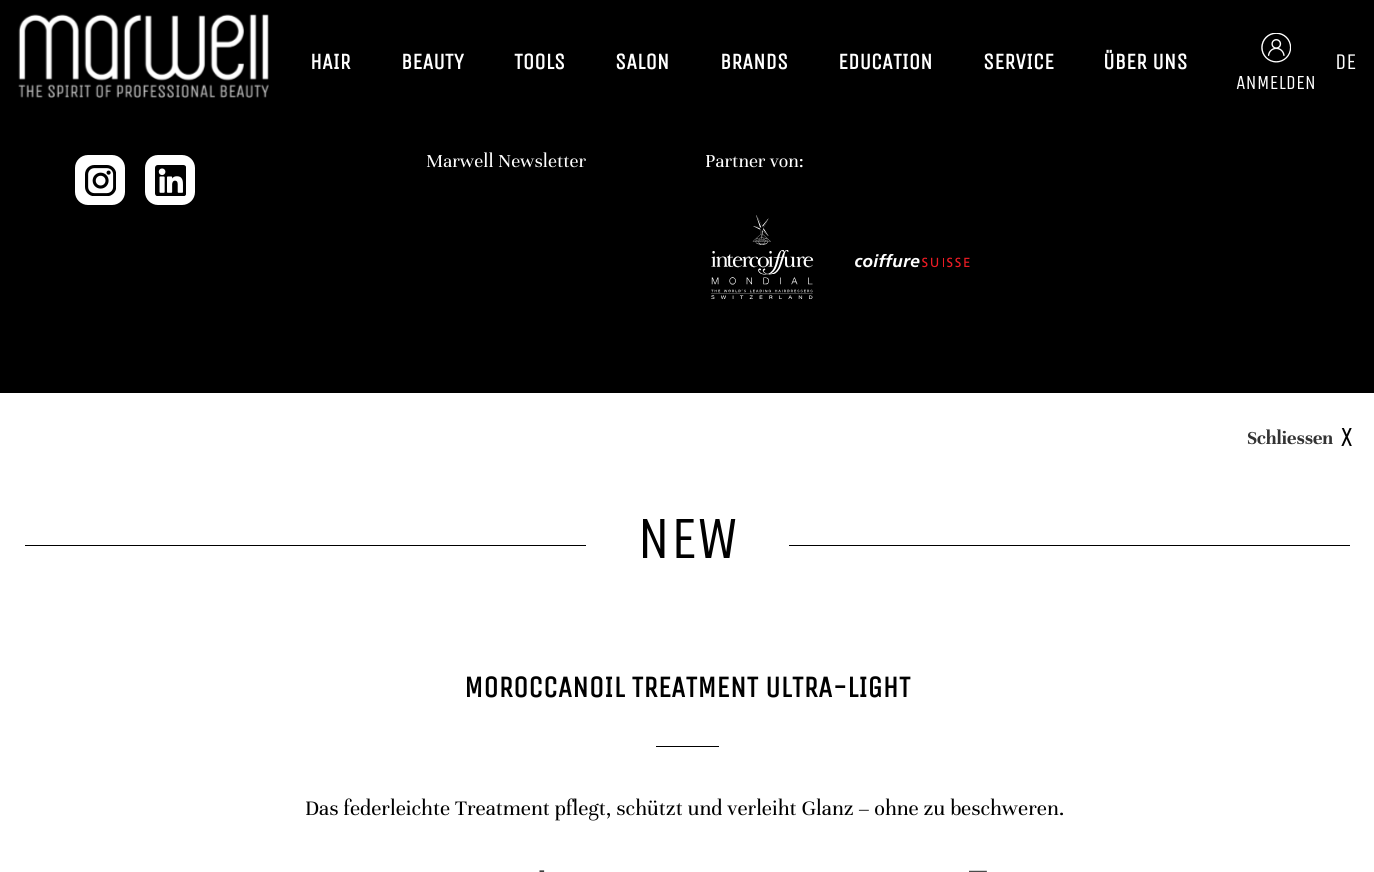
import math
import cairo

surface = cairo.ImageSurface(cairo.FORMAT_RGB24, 1374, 872)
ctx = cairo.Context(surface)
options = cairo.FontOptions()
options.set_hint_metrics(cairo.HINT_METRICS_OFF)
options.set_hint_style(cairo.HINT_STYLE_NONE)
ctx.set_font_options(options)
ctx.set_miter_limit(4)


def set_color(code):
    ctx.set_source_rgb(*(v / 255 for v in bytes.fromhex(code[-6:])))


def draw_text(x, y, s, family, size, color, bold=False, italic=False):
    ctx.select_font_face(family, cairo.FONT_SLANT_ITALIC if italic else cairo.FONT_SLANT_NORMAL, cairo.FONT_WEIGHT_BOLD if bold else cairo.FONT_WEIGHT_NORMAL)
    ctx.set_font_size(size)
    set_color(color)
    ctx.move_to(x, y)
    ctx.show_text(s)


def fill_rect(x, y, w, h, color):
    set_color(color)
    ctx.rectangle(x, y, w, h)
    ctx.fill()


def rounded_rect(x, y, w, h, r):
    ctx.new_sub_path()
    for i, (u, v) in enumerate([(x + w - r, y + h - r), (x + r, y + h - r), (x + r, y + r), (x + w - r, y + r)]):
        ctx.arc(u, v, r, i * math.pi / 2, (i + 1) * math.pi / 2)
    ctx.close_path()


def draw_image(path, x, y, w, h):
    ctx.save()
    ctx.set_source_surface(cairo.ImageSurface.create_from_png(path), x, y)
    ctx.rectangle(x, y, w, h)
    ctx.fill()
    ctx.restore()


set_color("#ffffff")
ctx.paint()
fill_rect(0, 0, 1374, 393, "#000000")
draw_image("assets/img1.png", 18, 14, 251, 84)
draw_text(310, 69, "HAIR", "Unica One", 22.5, "#ffffff", bold=True)
draw_text(401, 69, "BEAUTY", "Unica One", 22.5, "#ffffff", bold=True)
draw_text(514, 69, "TOOLS", "Unica One", 22.5, "#ffffff", bold=True)
draw_text(615, 69, "SALON", "Unica One", 22.5, "#ffffff", bold=True)
draw_text(720, 69, "BRANDS", "Unica One", 22.5, "#ffffff", bold=True)
draw_text(838, 69, "EDUCATION", "Unica One", 22.5, "#ffffff", bold=True)
draw_text(983, 69, "SERVICE", "Unica One", 22.5, "#ffffff", bold=True)
draw_text(1103, 69, "ÜBER UNS", "Unica One", 22.5, "#ffffff", bold=True)
draw_text(1335, 69, "DE", "Unica One", 22.5, "#ffffff")
draw_image("assets/img2.png", 1261, 33, 30, 30)
draw_text(1236, 89, "ANMELDEN", "Unica One", 20, "#ffffff")
rounded_rect(75, 155, 50, 50, 13)
ctx.fill()
draw_image("assets/img3.png", 85, 165, 31, 31)
rounded_rect(145, 155, 50, 50, 13)
ctx.fill()
draw_image("assets/img4.png", 155, 165, 31, 31)
draw_text(426, 167, "Marwell Newsletter", "Unna", 20, "#ffffff")
draw_text(705, 167, "Partner von:", "Unna", 20, "#ffffff")
draw_image("assets/img5.png", 711, 215, 103, 84)
draw_image("assets/img6.png", 855, 254, 115, 14)
draw_text(1247, 444, "Schliessen", "Unna", 20, "#333333", bold=True)
draw_image("assets/img7.png", 1341, 428, 11, 18)
fill_rect(25, 545, 561, 1, "#000000")
draw_text(637, 558, "NEW", "Unica One", 60, "#000000")
fill_rect(789, 545, 561, 1, "#000000")
draw_text(464, 697, "MOROCCANOIL TREATMENT ULTRA-LIGHT", "Unica One", 30, "#000000", bold=True)
fill_rect(656, 746, 63, 1, "#000000")
draw_text(305, 815, "Das federleichte Treatment pflegt, schützt und verleiht Glanz – ohne zu beschweren.", "Unna", 22.5, "#000000")
draw_text(539, 876, "-", "Unna", 22.5, "#000000")
draw_text(969, 876, "—", "Unna", 22.5, "#000000")
surface.write_to_png("output.png")
